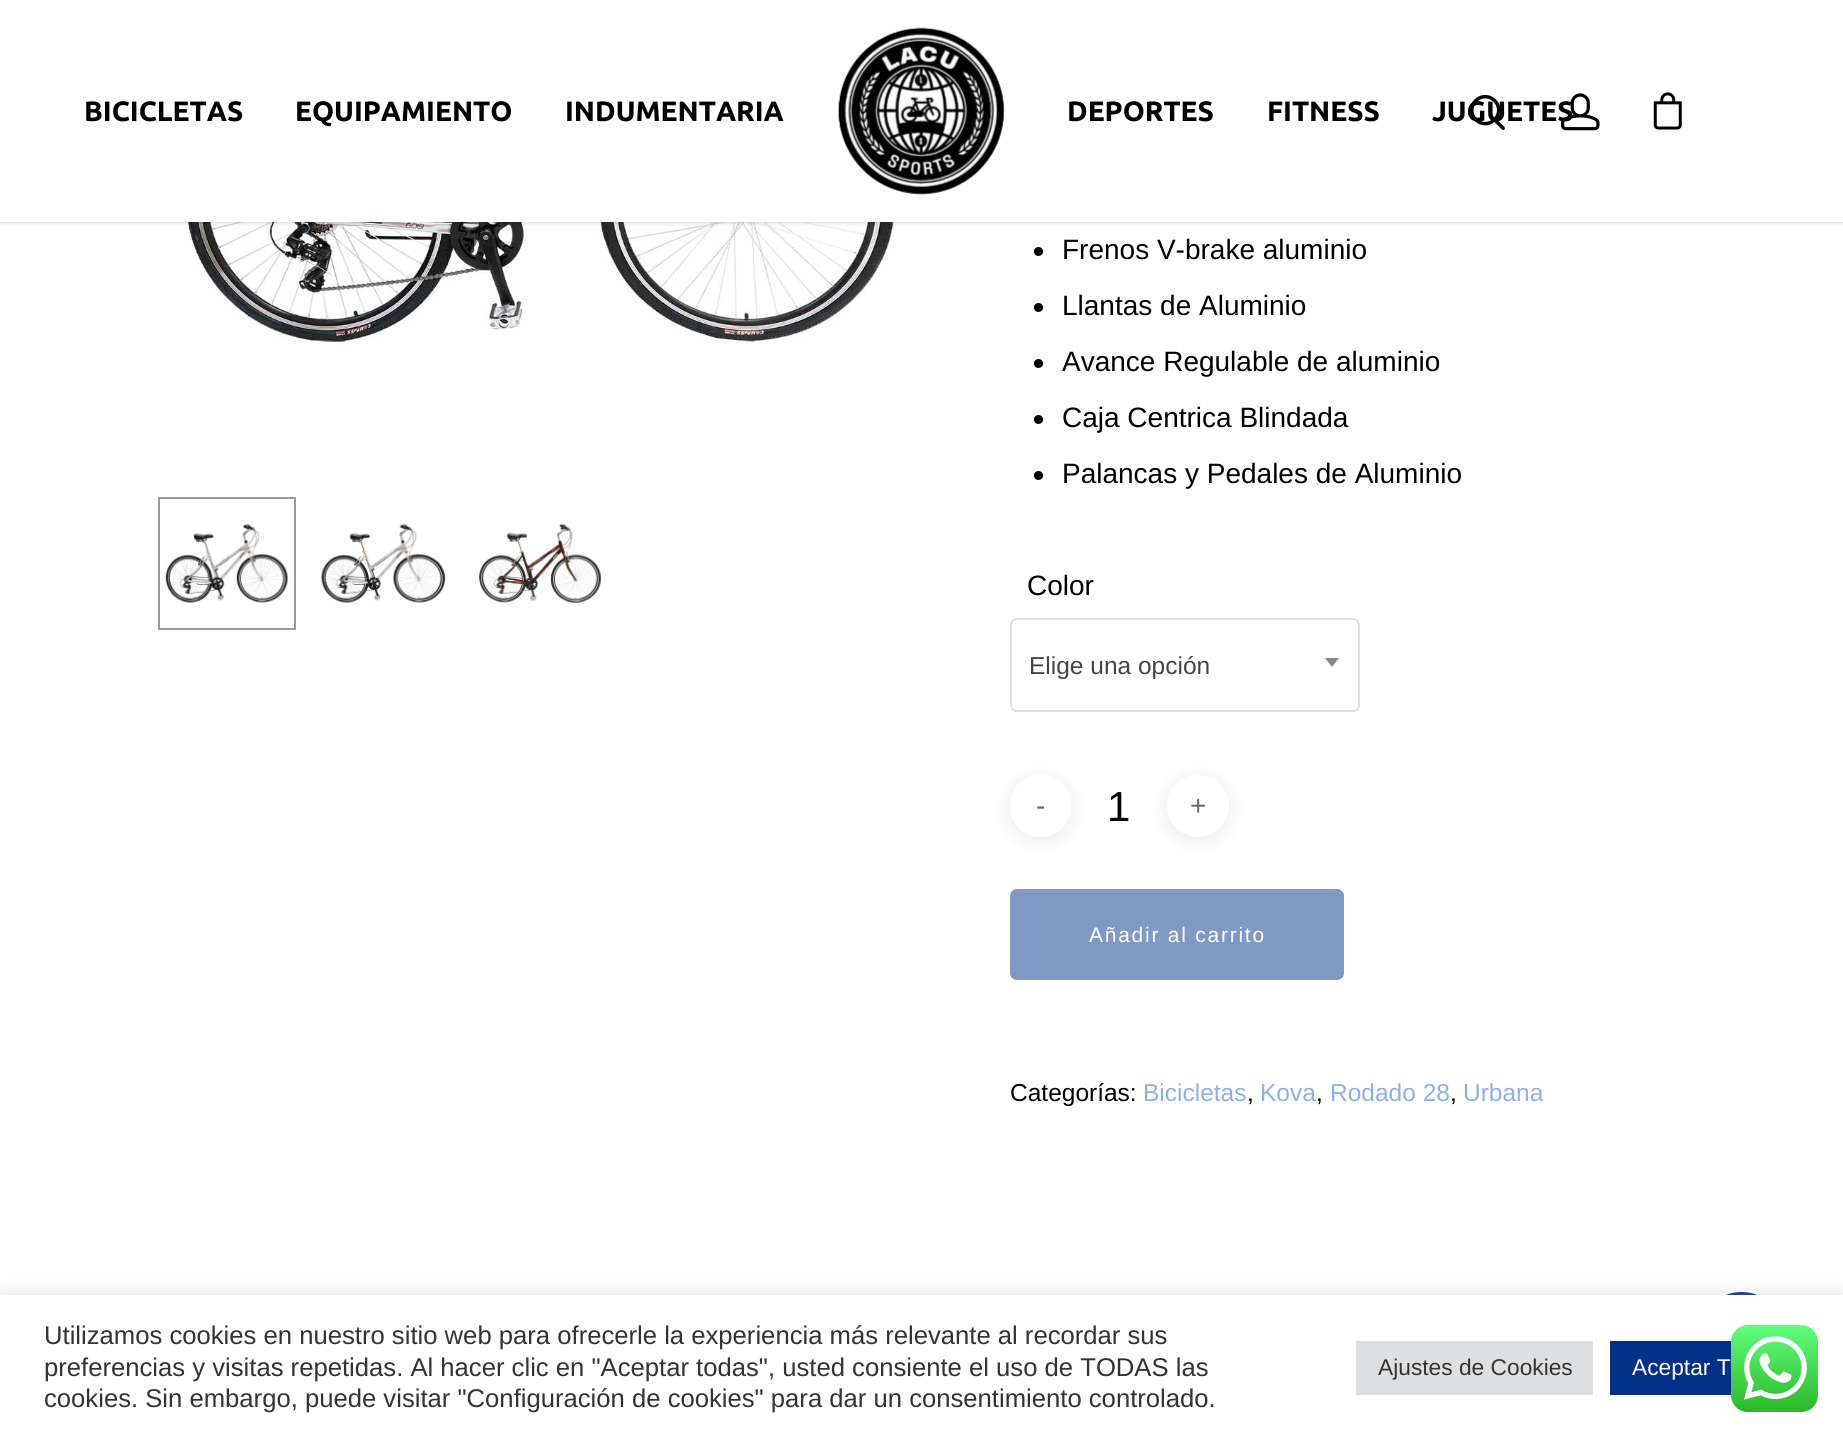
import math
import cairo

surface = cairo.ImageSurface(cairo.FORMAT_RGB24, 1843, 1437)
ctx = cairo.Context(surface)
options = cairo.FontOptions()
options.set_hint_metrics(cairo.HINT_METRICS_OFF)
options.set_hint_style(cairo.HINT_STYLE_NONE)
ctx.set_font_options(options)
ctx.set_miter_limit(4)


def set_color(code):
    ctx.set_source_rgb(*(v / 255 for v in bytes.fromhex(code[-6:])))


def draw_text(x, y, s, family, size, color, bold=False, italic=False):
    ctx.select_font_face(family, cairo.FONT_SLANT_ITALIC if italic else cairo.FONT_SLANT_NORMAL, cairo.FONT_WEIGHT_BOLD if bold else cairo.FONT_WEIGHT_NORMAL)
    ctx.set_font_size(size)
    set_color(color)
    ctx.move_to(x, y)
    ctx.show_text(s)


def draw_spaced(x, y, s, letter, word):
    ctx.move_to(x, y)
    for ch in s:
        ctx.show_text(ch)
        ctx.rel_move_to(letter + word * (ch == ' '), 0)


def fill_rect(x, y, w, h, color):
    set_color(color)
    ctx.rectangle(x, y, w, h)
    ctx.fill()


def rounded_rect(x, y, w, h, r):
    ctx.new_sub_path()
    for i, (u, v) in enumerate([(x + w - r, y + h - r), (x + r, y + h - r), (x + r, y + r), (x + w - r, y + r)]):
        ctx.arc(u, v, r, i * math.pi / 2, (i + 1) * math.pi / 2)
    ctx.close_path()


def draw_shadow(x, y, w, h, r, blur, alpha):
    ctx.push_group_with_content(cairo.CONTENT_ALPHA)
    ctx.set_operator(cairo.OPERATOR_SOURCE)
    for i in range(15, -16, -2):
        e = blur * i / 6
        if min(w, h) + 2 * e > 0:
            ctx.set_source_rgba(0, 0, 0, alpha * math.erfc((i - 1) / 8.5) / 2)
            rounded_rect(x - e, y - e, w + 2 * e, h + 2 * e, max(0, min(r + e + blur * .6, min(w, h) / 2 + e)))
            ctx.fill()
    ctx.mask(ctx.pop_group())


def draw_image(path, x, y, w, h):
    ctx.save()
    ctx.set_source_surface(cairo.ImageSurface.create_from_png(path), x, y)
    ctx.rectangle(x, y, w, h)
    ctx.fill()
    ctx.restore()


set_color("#ffffff")
ctx.paint()
draw_image("assets/img5.png", 180, 222, 719, 122)
set_color("#000000")
draw_shadow(0, -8, 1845, 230, 0, 2.5, 0.22)
fill_rect(0, 0, 1843, 222, "#ffffff")
draw_image("assets/img1.png", 838, 27, 167, 168)
draw_text(84, 121, "BICICLETAS", "Ubuntu", 28, "#000000", bold=True)
draw_text(295, 121, "EQUIPAMIENTO", "Ubuntu", 28, "#000000", bold=True)
draw_text(565, 121, "INDUMENTARIA", "Ubuntu", 28, "#000000", bold=True)
draw_text(1067, 121, "DEPORTES", "Ubuntu", 28, "#000000", bold=True)
draw_text(1267, 121, "FITNESS", "Ubuntu", 28, "#000000", bold=True)
draw_text(1432, 121, "JUGUETES", "Ubuntu", 28, "#000000", bold=True)
draw_image("assets/img2.png", 1471, 94, 34, 36)
draw_image("assets/img3.png", 1561, 93, 39, 38)
draw_image("assets/img4.png", 1653, 92, 29, 38)
ctx.rectangle(159, 498, 136, 131)
set_color("#999999")
ctx.stroke()
draw_image("assets/img6.png", 165, 523, 124, 80)
draw_image("assets/img7.png", 320, 523, 126, 80)
draw_image("assets/img8.png", 479, 523, 123, 80)
set_color("#000000")
ctx.arc(1038.5, 251.5, 4.5, 0, 2 * math.pi)
ctx.fill()
draw_text(1062, 259, "Frenos V-brake aluminio", "Liberation Sans", 28, "#000000")
ctx.new_path()
ctx.arc(1038.5, 307.5, 4.5, 0, 2 * math.pi)
ctx.fill()
draw_text(1062, 315, "Llantas de Aluminio", "Liberation Sans", 28, "#000000")
ctx.new_path()
ctx.arc(1038.5, 363.5, 4.5, 0, 2 * math.pi)
ctx.fill()
draw_text(1062, 371, "Avance Regulable de aluminio", "Liberation Sans", 28, "#000000")
ctx.new_path()
ctx.arc(1038.5, 419.5, 4.5, 0, 2 * math.pi)
ctx.fill()
draw_text(1062, 427, "Caja Centrica Blindada", "Liberation Sans", 28, "#000000")
ctx.new_path()
ctx.arc(1038.5, 475.5, 4.5, 0, 2 * math.pi)
ctx.fill()
draw_text(1062, 483, "Palancas y Pedales de Aluminio", "Liberation Sans", 28, "#000000")
draw_text(1027, 595, "Color", "Liberation Sans", 28, "#000000")
rounded_rect(1011, 619, 348, 92, 6)
set_color("#e0e0e0")
ctx.stroke()
draw_text(1029, 674, "Elige una opción", "Liberation Sans", 24.5, "#444444")
set_color("#888888")
ctx.new_path()
ctx.move_to(1325, 658)
ctx.line_to(1339, 658)
ctx.line_to(1332, 667)
ctx.close_path()
ctx.fill()
ctx.save()
ctx.set_fill_rule(cairo.FILL_RULE_EVEN_ODD)
ctx.new_path()
ctx.move_to(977, 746)
ctx.line_to(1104, 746)
ctx.line_to(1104, 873)
ctx.line_to(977, 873)
ctx.close_path()
ctx.move_to(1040.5, 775)
ctx.curve_to(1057.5, 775, 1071, 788.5, 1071, 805.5)
ctx.line_to(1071, 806.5)
ctx.curve_to(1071, 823.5, 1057.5, 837, 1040.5, 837)
ctx.curve_to(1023.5, 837, 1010, 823.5, 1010, 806.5)
ctx.line_to(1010, 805.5)
ctx.curve_to(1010, 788.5, 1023.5, 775, 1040.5, 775)
ctx.close_path()
ctx.clip()
set_color("#000000")
draw_shadow(1010, 779, 61, 61, 30.5, 10.5, 0.08)
ctx.restore()
draw_text(1036, 815, "-", "Liberation Sans", 28, "#666666")
draw_text(1107, 821, "1", "Liberation Sans", 42, "#000000")
ctx.save()
ctx.set_fill_rule(cairo.FILL_RULE_EVEN_ODD)
ctx.new_path()
ctx.move_to(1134, 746)
ctx.line_to(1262, 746)
ctx.line_to(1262, 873)
ctx.line_to(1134, 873)
ctx.close_path()
ctx.move_to(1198, 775)
ctx.curve_to(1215, 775, 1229, 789, 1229, 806)
ctx.curve_to(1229, 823, 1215, 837, 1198, 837)
ctx.curve_to(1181, 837, 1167, 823, 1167, 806)
ctx.curve_to(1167, 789, 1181, 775, 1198, 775)
ctx.close_path()
ctx.clip()
set_color("#000000")
draw_shadow(1167, 779, 62, 61, 30.5, 10.5, 0.08)
ctx.restore()
draw_text(1190, 815, "+", "Liberation Sans", 28, "#666666")
set_color("#8098c3")
rounded_rect(1010, 889, 334, 91, 7)
ctx.fill()
ctx.set_font_size(21)
set_color("#ffffff")
draw_spaced(1089, 942, "Añadir al carrito", 1.75, 0)
draw_text(1010, 1101, "Categorías:", "Liberation Sans", 24.5, "#000000")
draw_text(1143, 1101, "Bicicletas", "Liberation Sans", 24.5, "#8fafeb")
draw_text(1247, 1101, ",", "Liberation Sans", 24.5, "#000000")
draw_text(1260, 1101, "Kova", "Liberation Sans", 24.5, "#8fafeb")
draw_text(1316, 1101, ",", "Liberation Sans", 24.5, "#000000")
draw_text(1330, 1101, "Rodado 28", "Liberation Sans", 24.5, "#8fafeb")
draw_text(1450, 1101, ",", "Liberation Sans", 24.5, "#000000")
draw_text(1463, 1101, "Urbana", "Liberation Sans", 24.5, "#8fafeb")
set_color("#013087")
ctx.new_path()
ctx.arc(1741.5, 1335.5, 43.5, 0, 2 * math.pi)
ctx.fill()
set_color("#acabab")
draw_shadow(0, 1293, 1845, 144, 0, 9, 0.3)
fill_rect(0, 1295, 1843, 142, "#ffffff")
draw_text(44, 1344, "Utilizamos cookies en nuestro sitio web para ofrecerle la experiencia más relevante al recordar sus", "Liberation Sans", 25.65, "#333333")
draw_text(44, 1376, "preferencias y visitas repetidas. Al hacer clic en \"Aceptar todas\", usted consiente el uso de TODAS las", "Liberation Sans", 25.65, "#333333")
draw_text(44, 1407, "cookies. Sin embargo, puede visitar \"Configuración de cookies\" para dar un consentimiento controlado.", "Liberation Sans", 25.65, "#333333")
fill_rect(1356, 1341, 237, 54, "#dedfe0")
draw_text(1378, 1375, "Ajustes de Cookies", "Liberation Sans", 22.75, "#333333")
fill_rect(1610, 1341, 121, 54, "#013087")
draw_text(1632, 1375, "Aceptar T", "Liberation Sans", 22.75, "#ffffff")
draw_image("assets/img9.png", 1731, 1325, 87, 87)
surface.write_to_png("output.png")
